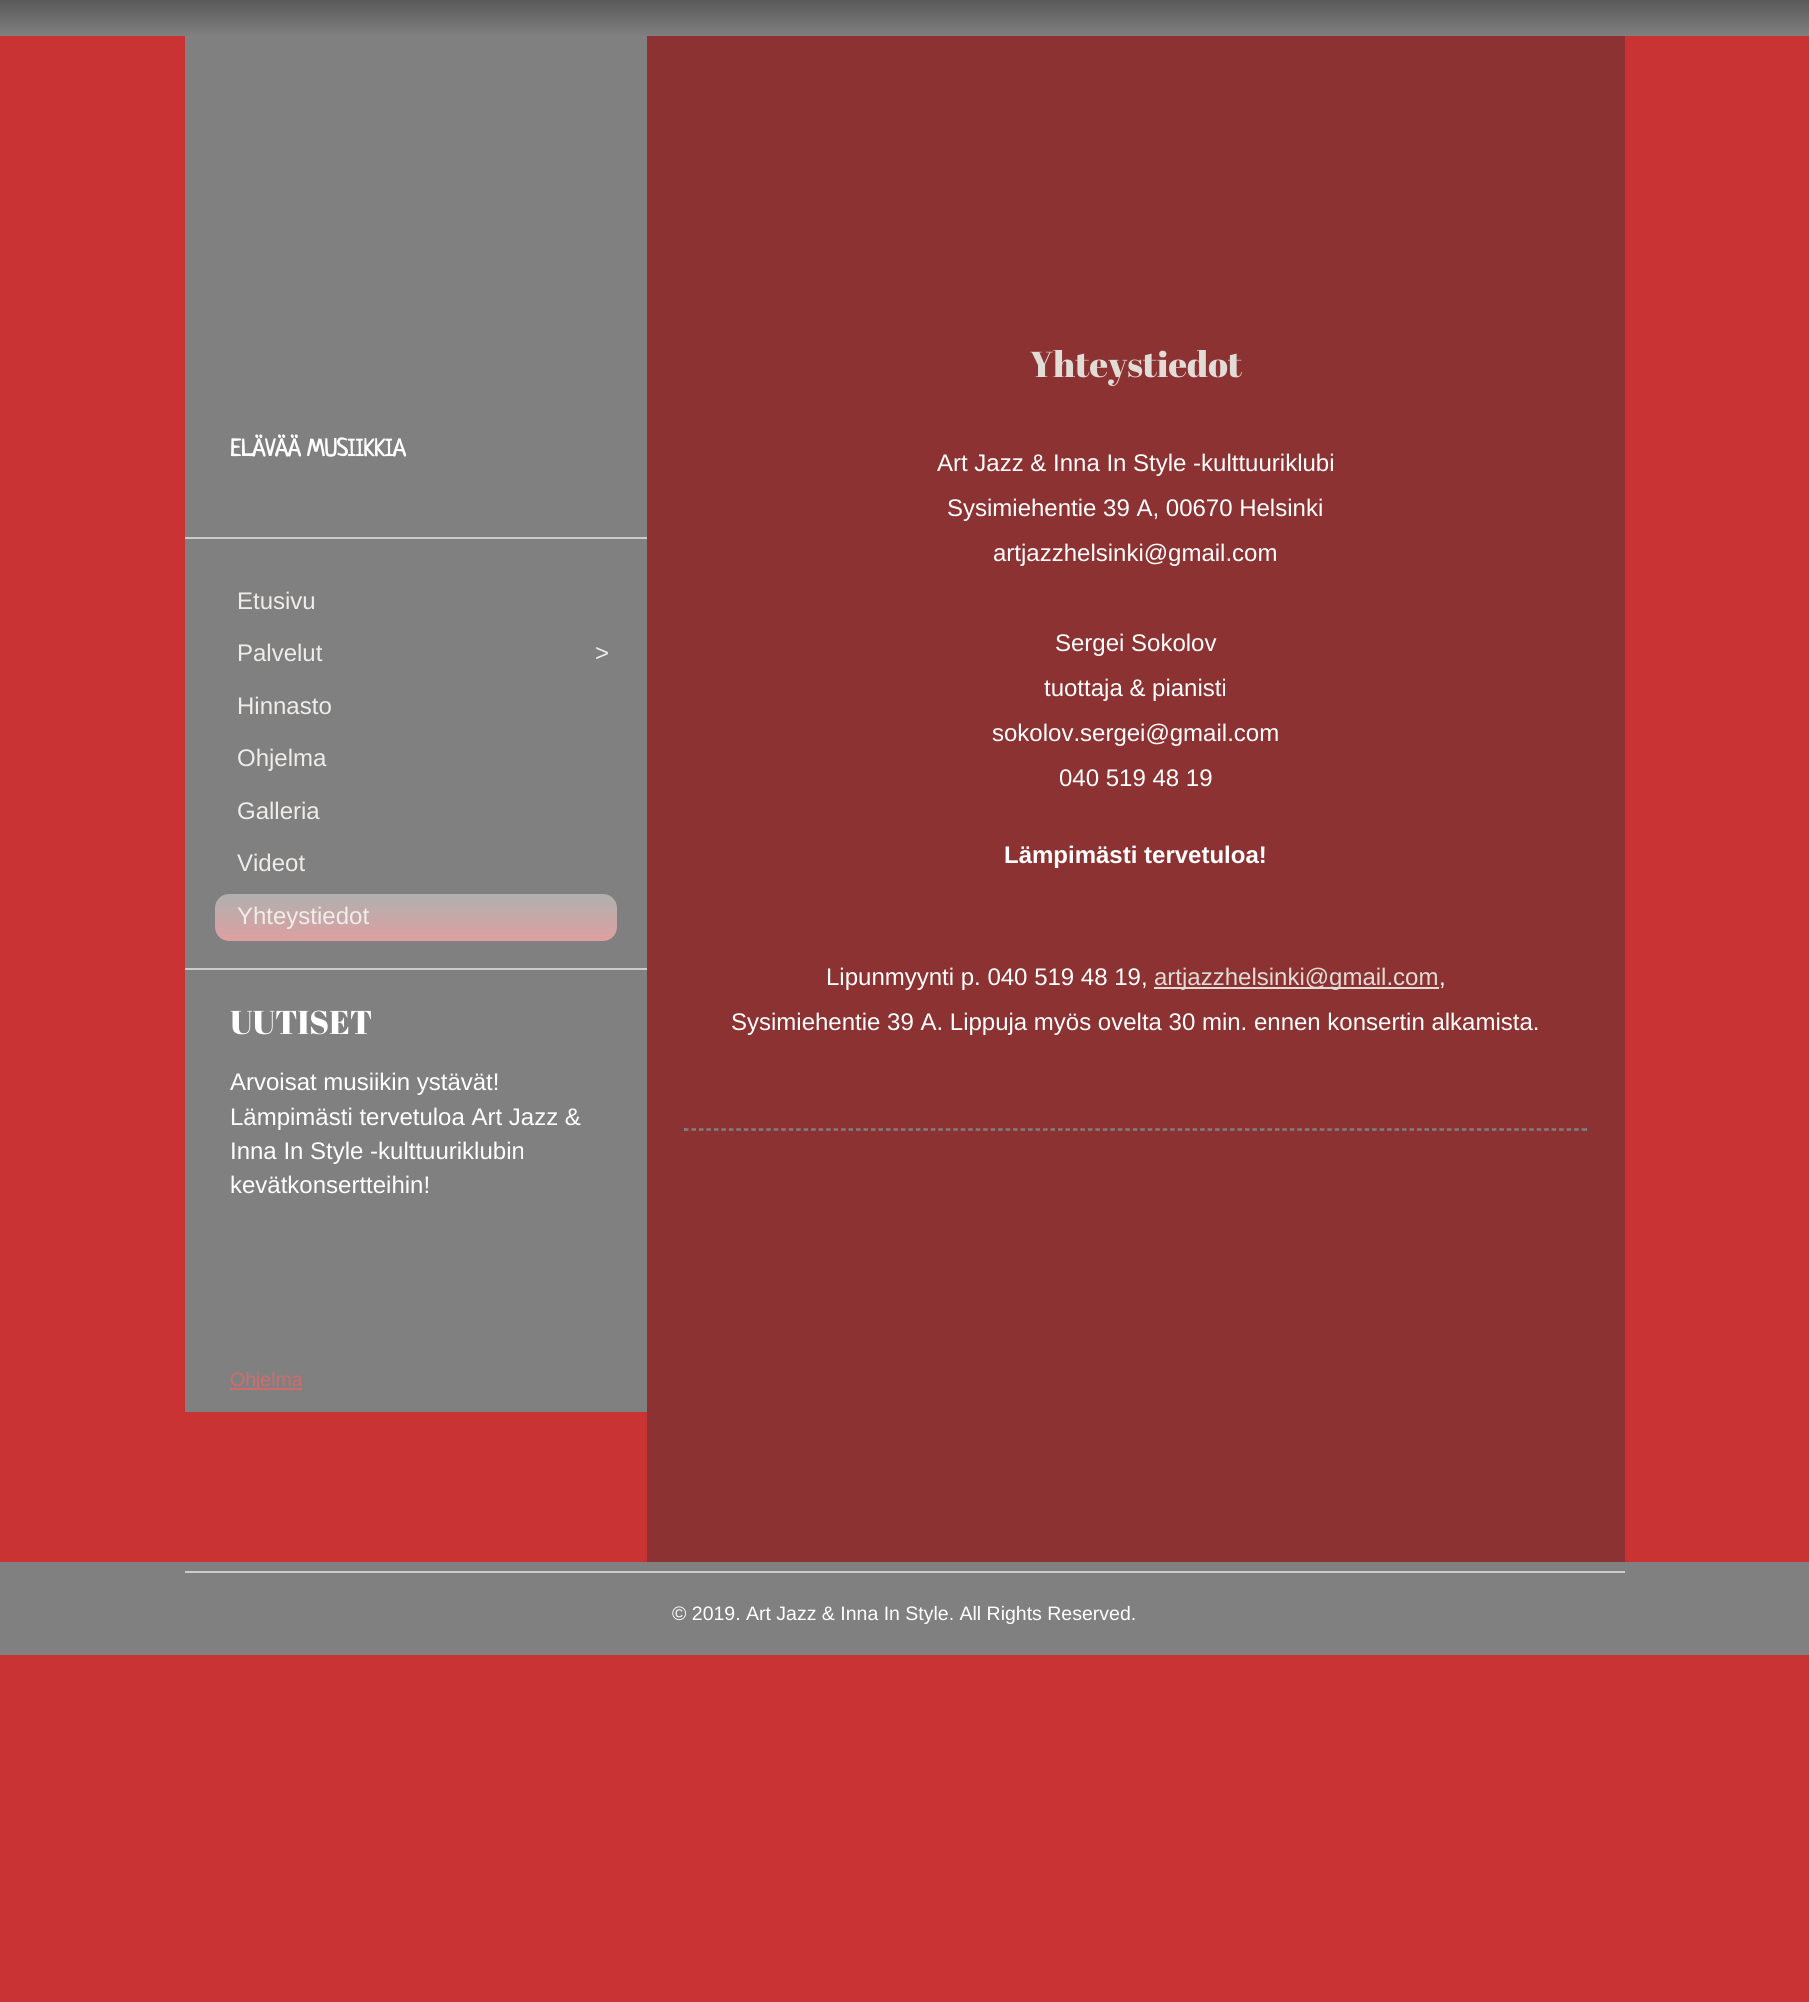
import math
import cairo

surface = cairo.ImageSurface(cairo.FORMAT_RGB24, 1809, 2002)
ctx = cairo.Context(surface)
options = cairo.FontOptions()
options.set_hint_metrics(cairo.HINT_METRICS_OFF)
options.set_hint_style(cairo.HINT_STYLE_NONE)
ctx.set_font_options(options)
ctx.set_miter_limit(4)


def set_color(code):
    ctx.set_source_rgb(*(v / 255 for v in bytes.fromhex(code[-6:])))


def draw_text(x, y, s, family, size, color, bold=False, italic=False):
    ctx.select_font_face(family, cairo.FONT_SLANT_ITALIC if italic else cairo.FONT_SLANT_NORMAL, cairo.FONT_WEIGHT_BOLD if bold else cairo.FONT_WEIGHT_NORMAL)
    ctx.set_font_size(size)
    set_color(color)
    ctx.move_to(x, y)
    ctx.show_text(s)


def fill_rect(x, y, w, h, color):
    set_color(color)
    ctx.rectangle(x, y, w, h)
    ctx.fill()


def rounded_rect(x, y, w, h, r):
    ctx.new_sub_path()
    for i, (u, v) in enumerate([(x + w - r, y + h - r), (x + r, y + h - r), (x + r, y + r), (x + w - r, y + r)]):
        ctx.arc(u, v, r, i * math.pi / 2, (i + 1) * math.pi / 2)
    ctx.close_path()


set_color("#ca3333")
ctx.paint()
gradient = cairo.LinearGradient(905, 0, 905, 36)
gradient.add_color_stop_rgba(0, 0.349, 0.349, 0.349, 1)
gradient.add_color_stop_rgba(1, 0.502, 0.502, 0.502, 1)
ctx.set_source(gradient)
ctx.rectangle(0, 0, 1809, 36)
ctx.fill()
fill_rect(185, 36, 462, 1376, "#808080")
draw_text(230, 456, "ELÄVÄÄ MUSIIKKIA", "Neucha", 24, "#ffffff", bold=True)
fill_rect(185, 537, 462, 2, "#cccccc")
draw_text(237, 609, "Etusivu", "Liberation Sans", 24, "#efedeb")
draw_text(237, 661, "Palvelut", "Liberation Sans", 24, "#efedeb")
draw_text(595, 661, ">", "Liberation Sans", 24, "#efedeb")
draw_text(237, 714, "Hinnasto", "Liberation Sans", 24, "#efedeb")
draw_text(237, 766, "Ohjelma", "Liberation Sans", 24, "#efedeb")
draw_text(237, 819, "Galleria", "Liberation Sans", 24, "#efedeb")
draw_text(237, 871, "Videot", "Liberation Sans", 24, "#efedeb")
gradient = cairo.LinearGradient(416, 894, 416, 941)
gradient.add_color_stop_rgba(0, 0.69, 0.69, 0.69, 1)
gradient.add_color_stop_rgba(1, 0.867, 0.627, 0.627, 1)
ctx.set_source(gradient)
rounded_rect(215, 894, 402, 47, 14)
ctx.fill()
draw_text(237, 924, "Yhteystiedot", "Liberation Sans", 24, "#efedeb")
fill_rect(185, 968, 462, 2, "#cccccc")
draw_text(230, 1034, "UUTISET", "Abril Fatface", 33, "#ffffff")
draw_text(230, 1090, "Arvoisat musiikin ystävät!", "Liberation Sans", 24, "#ffffff")
draw_text(230, 1125, "Lämpimästi tervetuloa Art Jazz &", "Liberation Sans", 24, "#ffffff")
draw_text(230, 1159, "Inna In Style -kulttuuriklubin", "Liberation Sans", 24, "#ffffff")
draw_text(230, 1193, "kevätkonsertteihin!", "Liberation Sans", 24, "#ffffff")
fill_rect(230, 1388, 72, 2, "#d26b6b")
draw_text(230, 1386, "Ohjelma", "Liberation Sans", 19.5, "#d26b6b")
fill_rect(647, 36, 978, 1526, "#8c3232")
draw_text(1030, 377, "Yhteystiedot", "Abril Fatface", 36, "#e1dcd6")
draw_text(937, 471, "Art Jazz & Inna In Style -kulttuuriklubi", "Liberation Sans", 24, "#ffffff")
draw_text(947, 516, "Sysimiehentie 39 A, 00670 Helsinki", "Liberation Sans", 24, "#ffffff")
draw_text(993, 561, "artjazzhelsinki@gmail.com", "Liberation Sans", 24, "#ffffff")
draw_text(1055, 651, "Sergei Sokolov", "Liberation Sans", 24, "#ffffff")
draw_text(1044, 696, "tuottaja & pianisti", "Liberation Sans", 24, "#ffffff")
draw_text(992, 741, "sokolov.sergei@gmail.com", "Liberation Sans", 24, "#ffffff")
draw_text(1059, 786, "040 519 48 19", "Liberation Sans", 24, "#ffffff")
draw_text(1004, 863, "Lämpimästi tervetuloa!", "Liberation Sans", 24, "#ffffff", bold=True)
draw_text(826, 985, "Lipunmyynti p. 040 519 48 19,", "Liberation Sans", 24, "#ffffff")
fill_rect(1154, 987, 285, 2, "#e1dcd6")
draw_text(1154, 985, "artjazzhelsinki@gmail.com", "Liberation Sans", 24, "#e1dcd6")
draw_text(1439, 985, ",", "Liberation Sans", 24, "#ffffff")
draw_text(731, 1030, "Sysimiehentie 39 A. Lippuja myös ovelta 30 min. ennen konsertin alkamista.", "Liberation Sans", 24, "#ffffff")
ctx.new_path()
ctx.move_to(684, 1129)
ctx.line_to(1587, 1129)
set_color("#808080")
ctx.set_line_width(1.5)
ctx.set_dash([4.5, 2.98])
ctx.stroke()
fill_rect(1586, 1128, 1, 3, "#808080")
ctx.new_path()
ctx.move_to(684, 1130)
ctx.line_to(1587, 1130)
ctx.stroke()
fill_rect(684, 1128, 2, 3, "#808080")
fill_rect(0, 1562, 1809, 93, "#808080")
fill_rect(185, 1571, 1440, 2, "#cccccc")
draw_text(672, 1620, "© 2019. Art Jazz & Inna In Style. All Rights Reserved.", "Liberation Sans", 19.5, "#ffffff")
surface.write_to_png("output.png")
